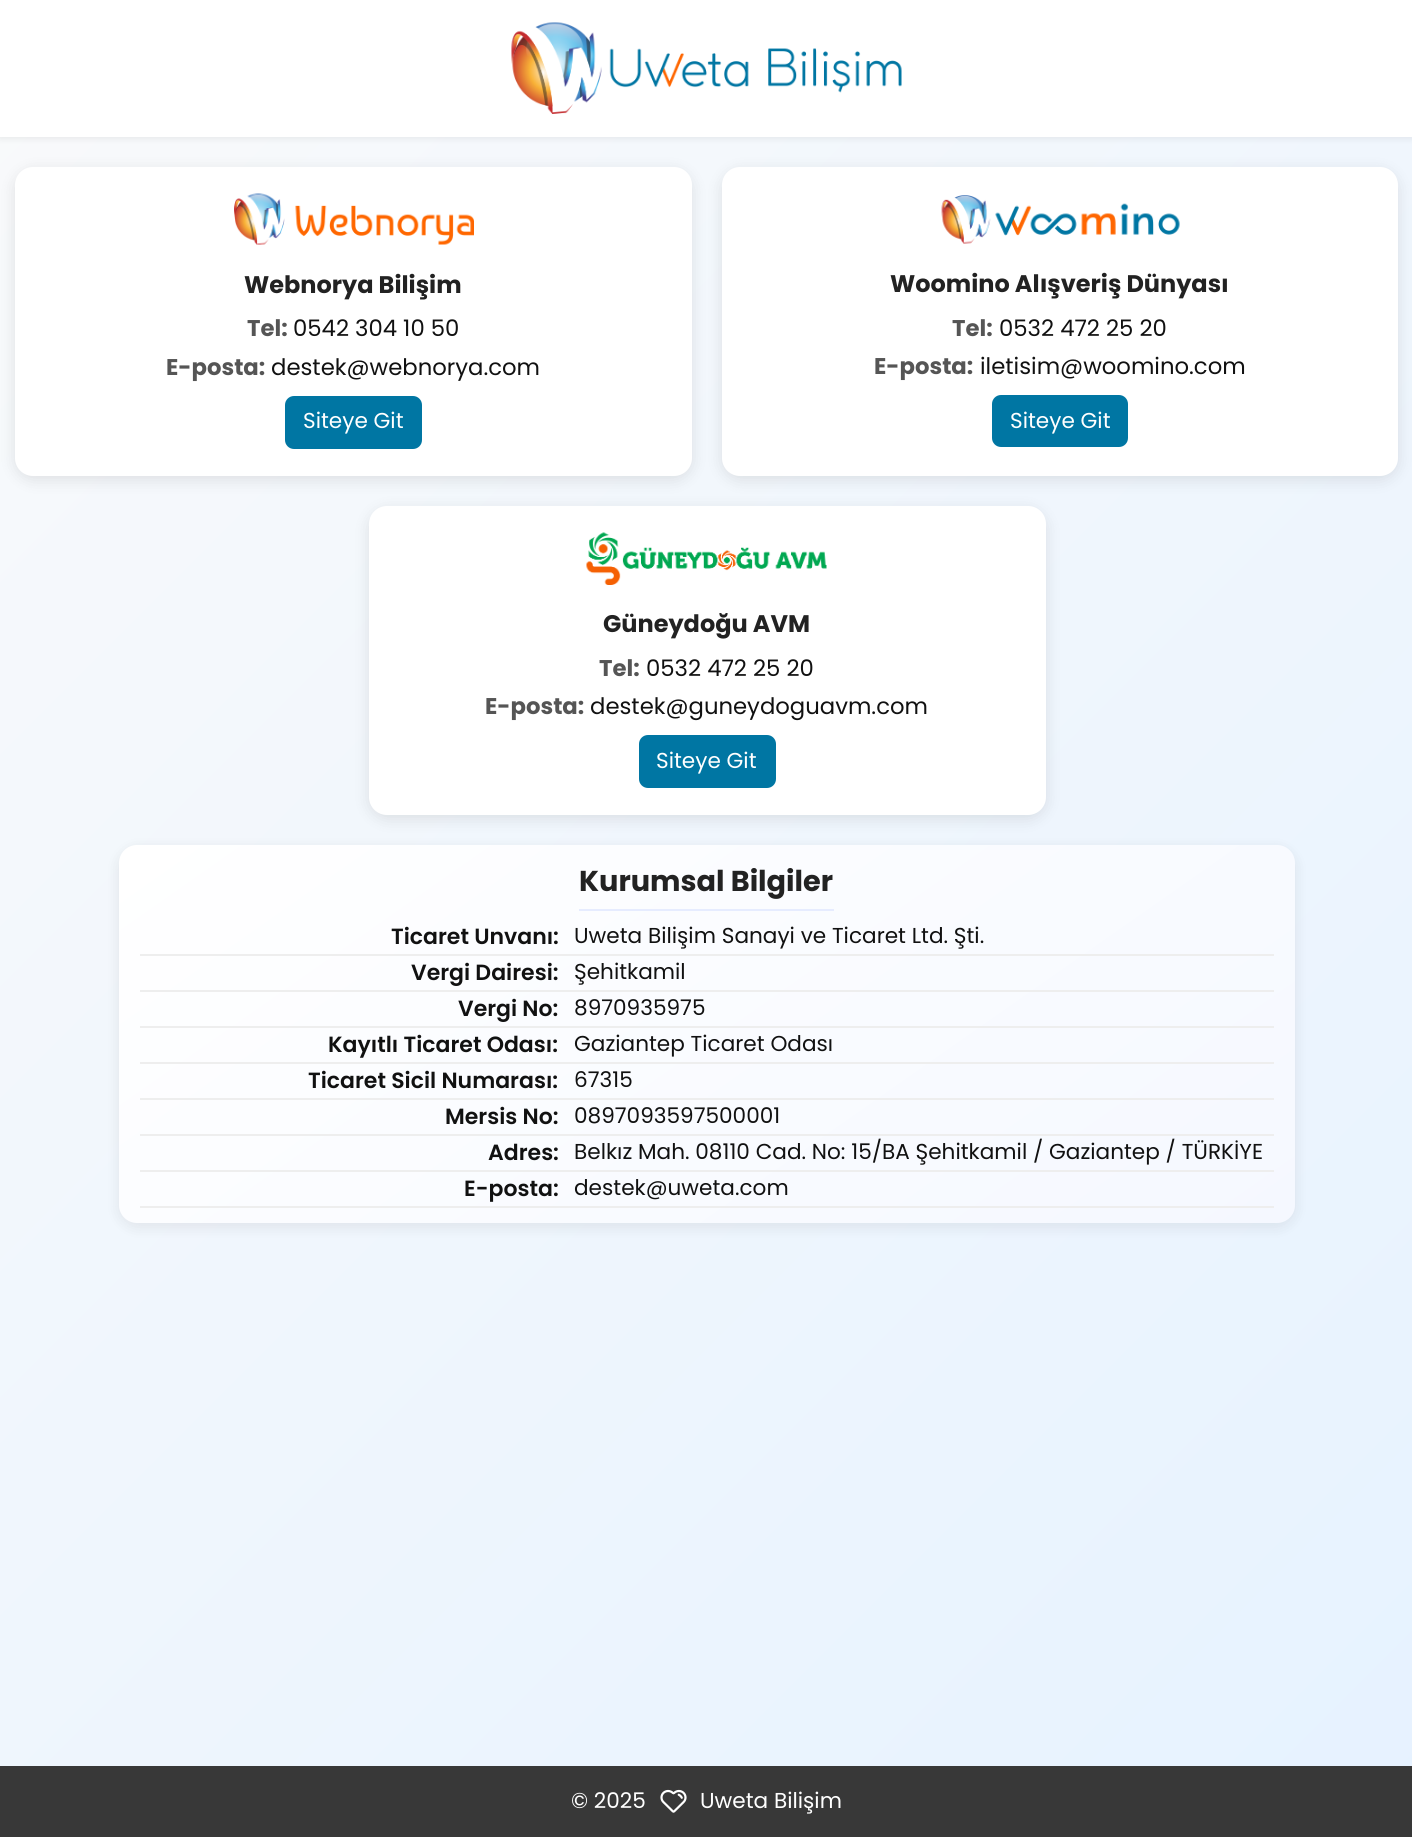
import math
import cairo

surface = cairo.ImageSurface(cairo.FORMAT_RGB24, 1412, 1837)
ctx = cairo.Context(surface)
options = cairo.FontOptions()
options.set_hint_metrics(cairo.HINT_METRICS_OFF)
options.set_hint_style(cairo.HINT_STYLE_NONE)
ctx.set_font_options(options)
ctx.set_miter_limit(4)


def set_color(code):
    ctx.set_source_rgb(*(v / 255 for v in bytes.fromhex(code[-6:])))


def draw_text(x, y, s, family, size, color, bold=False, italic=False):
    ctx.select_font_face(family, cairo.FONT_SLANT_ITALIC if italic else cairo.FONT_SLANT_NORMAL, cairo.FONT_WEIGHT_BOLD if bold else cairo.FONT_WEIGHT_NORMAL)
    ctx.set_font_size(size)
    set_color(color)
    ctx.move_to(x, y)
    ctx.show_text(s)


def fill_rect(x, y, w, h, color):
    set_color(color)
    ctx.rectangle(x, y, w, h)
    ctx.fill()


def rounded_rect(x, y, w, h, r):
    ctx.new_sub_path()
    for i, (u, v) in enumerate([(x + w - r, y + h - r), (x + r, y + h - r), (x + r, y + r), (x + w - r, y + r)]):
        ctx.arc(u, v, r, i * math.pi / 2, (i + 1) * math.pi / 2)
    ctx.close_path()


def draw_shadow(x, y, w, h, r, blur, alpha):
    ctx.push_group_with_content(cairo.CONTENT_ALPHA)
    ctx.set_operator(cairo.OPERATOR_SOURCE)
    for i in range(15, -16, -2):
        e = blur * i / 6
        if min(w, h) + 2 * e > 0:
            ctx.set_source_rgba(0, 0, 0, alpha * math.erfc((i - 1) / 8.5) / 2)
            rounded_rect(x - e, y - e, w + 2 * e, h + 2 * e, max(0, min(r + e + blur * .6, min(w, h) / 2 + e)))
            ctx.fill()
    ctx.mask(ctx.pop_group())


def draw_image(path, x, y, w, h):
    ctx.save()
    ctx.set_source_surface(cairo.ImageSurface.create_from_png(path), x, y)
    ctx.rectangle(x, y, w, h)
    ctx.fill()
    ctx.restore()


set_color("#ffffff")
ctx.paint()
gradient = cairo.LinearGradient(-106, 106, 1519, 1731)
gradient.add_color_stop_rgba(0, 0.976, 0.98, 0.984, 1)
gradient.add_color_stop_rgba(1, 0.902, 0.949, 1, 1)
ctx.set_source(gradient)
ctx.rectangle(0, 137, 1412, 1629)
ctx.fill()
set_color("#000000")
draw_shadow(0, 2, 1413, 136, 0, 4, 0.08)
fill_rect(0, 0, 1412, 137, "#ffffff")
draw_image("assets/img1.png", 511, 22, 391, 92)
set_color("#000000")
draw_shadow(15, 171, 677, 309, 18, 7.5, 0.1)
set_color("#ffffff")
rounded_rect(15, 167, 677, 309, 18)
ctx.fill()
draw_image("assets/img2.png", 234, 193, 240, 52)
draw_text(244, 293, "Webnorya Bilişim", "Poppins", 24, "#222222", bold=True)
draw_text(247, 336, "Tel:", "Poppins", 22.75, "#555555", bold=True)
draw_text(293, 336, "0542 304 10 50", "Poppins", 22.75, "#111111")
draw_text(166, 375, "E-posta:", "Poppins", 22.75, "#555555", bold=True)
draw_text(271, 375, "destek@webnorya.com", "Poppins", 22.75, "#111111")
set_color("#0076a3")
rounded_rect(285, 396, 137, 53, 9)
ctx.fill()
draw_text(303, 428, "Siteye Git", "Poppins", 21.6, "#ffffff")
set_color("#000000")
draw_shadow(722, 171, 676, 309, 18, 7.5, 0.1)
set_color("#ffffff")
rounded_rect(722, 167, 676, 309, 18)
ctx.fill()
draw_image("assets/img3.png", 941, 195, 239, 49)
draw_text(890, 292, "Woomino Alışveriş Dünyası", "Poppins", 24, "#222222", bold=True)
draw_text(952, 336, "Tel:", "Poppins", 22.75, "#555555", bold=True)
draw_text(999, 336, "0532 472 25 20", "Poppins", 22.75, "#111111")
draw_text(874, 374, "E-posta:", "Poppins", 22.75, "#555555", bold=True)
draw_text(980, 374, "iletisim@woomino.com", "Poppins", 22.75, "#111111")
set_color("#0076a3")
rounded_rect(992, 395, 136, 52, 9)
ctx.fill()
draw_text(1010, 428, "Siteye Git", "Poppins", 21.6, "#ffffff")
set_color("#000000")
draw_shadow(369, 510, 677, 309, 18, 7.5, 0.1)
set_color("#ffffff")
rounded_rect(369, 506, 677, 309, 18)
ctx.fill()
draw_image("assets/img4.png", 586, 532, 241, 53)
draw_text(603, 632, "Güneydoğu AVM", "Poppins", 24, "#222222", bold=True)
draw_text(599, 676, "Tel:", "Poppins", 22.75, "#555555", bold=True)
draw_text(646, 676, "0532 472 25 20", "Poppins", 22.75, "#111111")
draw_text(485, 714, "E-posta:", "Poppins", 22.75, "#555555", bold=True)
draw_text(590, 714, "destek@guneydoguavm.com", "Poppins", 22.75, "#111111")
set_color("#0076a3")
rounded_rect(639, 735, 137, 53, 9)
ctx.fill()
draw_text(656, 768, "Siteye Git", "Poppins", 21.6, "#ffffff")
set_color("#000000")
draw_shadow(119, 849, 1176, 378, 18, 7.5, 0.08)
gradient = cairo.LinearGradient(424, 630, 989, 1437)
gradient.add_color_stop_rgba(0, 1, 1, 1, 1)
gradient.add_color_stop_rgba(1, 0.961, 0.973, 1, 1)
ctx.set_source(gradient)
rounded_rect(119, 845, 1176, 378, 18)
ctx.fill()
fill_rect(579, 909, 255, 2, "#e6ecff")
draw_text(579, 891, "Kurumsal Bilgiler", "Poppins", 28.75, "#222222", bold=True)
fill_rect(140, 954, 1134, 2, "#eeeeee")
draw_text(391, 944, "Ticaret Unvanı:", "Poppins SemiBold", 22, "#111111")
draw_text(574, 943, "Uweta Bilişim Sanayi ve Ticaret Ltd. Şti.", "Poppins", 21.6, "#111111")
fill_rect(140, 990, 1134, 2, "#eeeeee")
draw_text(411, 980, "Vergi Dairesi:", "Poppins SemiBold", 22, "#111111")
draw_text(574, 979, "Şehitkamil", "Poppins", 21.6, "#111111")
fill_rect(140, 1026, 1134, 2, "#eeeeee")
draw_text(458, 1016, "Vergi No:", "Poppins SemiBold", 22, "#111111")
draw_text(574, 1015, "8970935975", "Poppins", 21.6, "#111111")
fill_rect(140, 1062, 1134, 2, "#eeeeee")
draw_text(328, 1052, "Kayıtlı Ticaret Odası:", "Poppins SemiBold", 22, "#111111")
draw_text(574, 1051, "Gaziantep Ticaret Odası", "Poppins", 21.6, "#111111")
fill_rect(140, 1098, 1134, 2, "#eeeeee")
draw_text(308, 1088, "Ticaret Sicil Numarası:", "Poppins SemiBold", 22, "#111111")
draw_text(574, 1087, "67315", "Poppins", 21.6, "#111111")
fill_rect(140, 1134, 1134, 2, "#eeeeee")
draw_text(445, 1124, "Mersis No:", "Poppins SemiBold", 22, "#111111")
draw_text(574, 1123, "0897093597500001", "Poppins", 21.6, "#111111")
fill_rect(140, 1170, 1134, 2, "#eeeeee")
draw_text(488, 1160, "Adres:", "Poppins SemiBold", 22, "#111111")
draw_text(574, 1159, "Belkız Mah. 08110 Cad. No: 15/BA Şehitkamil / Gaziantep / TÜRKİYE", "Poppins", 21.6, "#111111")
fill_rect(140, 1206, 1134, 2, "#eeeeee")
draw_text(464, 1196, "E-posta:", "Poppins SemiBold", 22, "#111111")
draw_text(574, 1195, "destek@uweta.com", "Poppins", 21.6, "#111111")
fill_rect(0, 1766, 1412, 71, "#383838")
draw_text(571, 1808, "© 2025", "Poppins", 21.6, "#ffffff")
draw_image("assets/img5.png", 660, 1789, 27, 24)
draw_text(700, 1808, "Uweta Bilişim", "Poppins", 21.6, "#ffffff")
surface.write_to_png("output.png")
